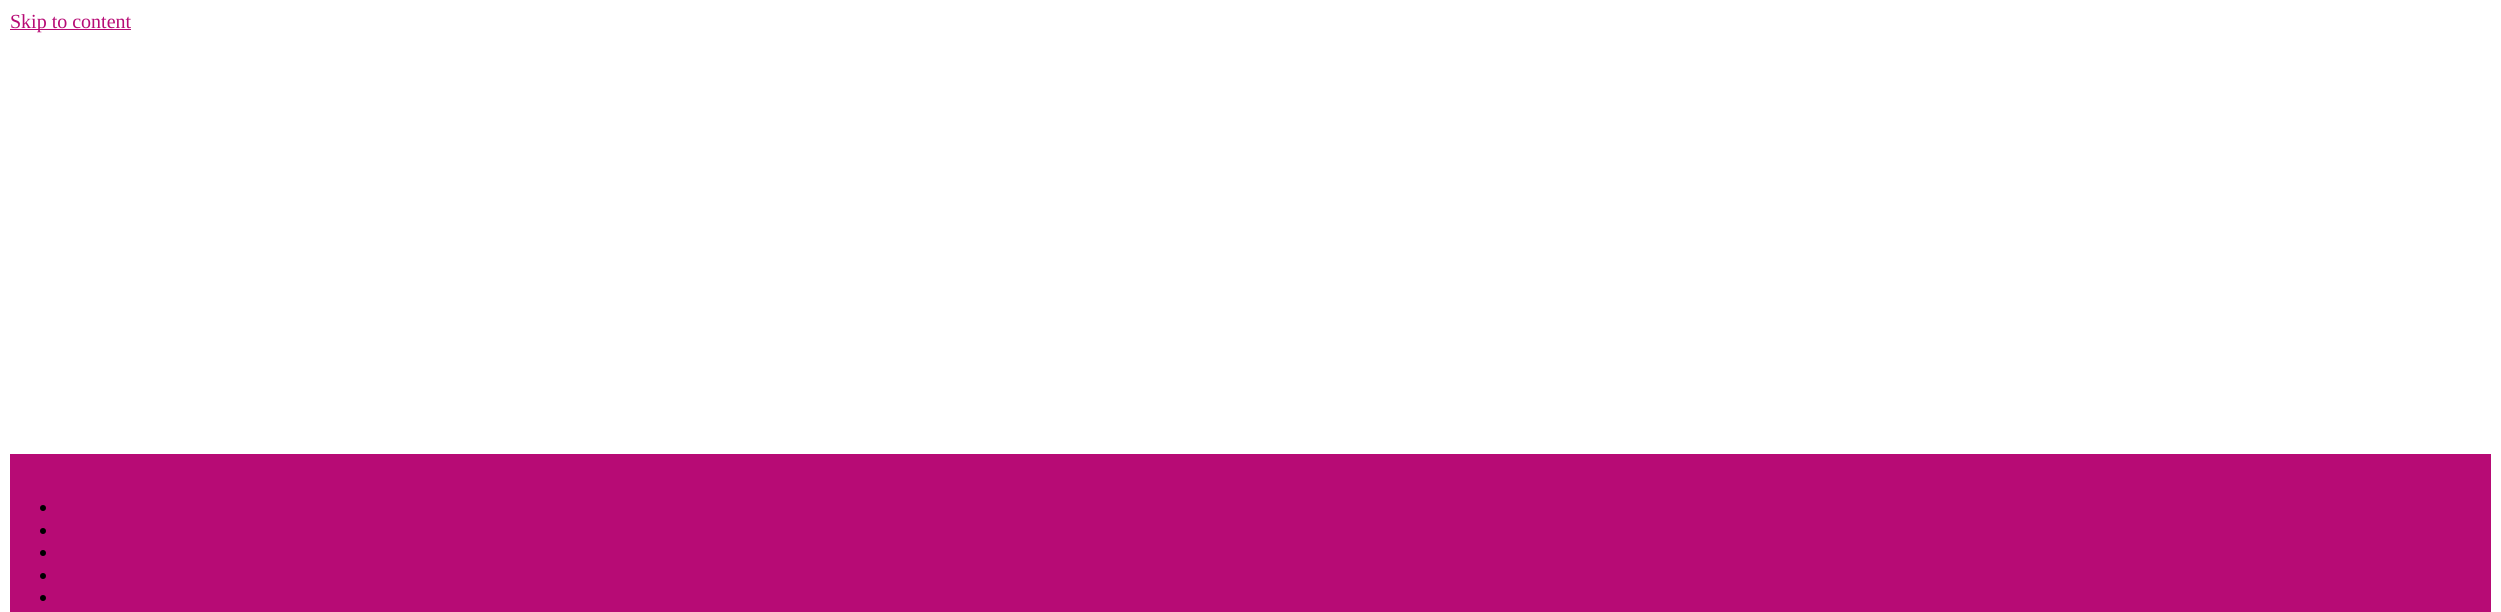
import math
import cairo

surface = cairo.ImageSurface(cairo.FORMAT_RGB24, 2501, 612)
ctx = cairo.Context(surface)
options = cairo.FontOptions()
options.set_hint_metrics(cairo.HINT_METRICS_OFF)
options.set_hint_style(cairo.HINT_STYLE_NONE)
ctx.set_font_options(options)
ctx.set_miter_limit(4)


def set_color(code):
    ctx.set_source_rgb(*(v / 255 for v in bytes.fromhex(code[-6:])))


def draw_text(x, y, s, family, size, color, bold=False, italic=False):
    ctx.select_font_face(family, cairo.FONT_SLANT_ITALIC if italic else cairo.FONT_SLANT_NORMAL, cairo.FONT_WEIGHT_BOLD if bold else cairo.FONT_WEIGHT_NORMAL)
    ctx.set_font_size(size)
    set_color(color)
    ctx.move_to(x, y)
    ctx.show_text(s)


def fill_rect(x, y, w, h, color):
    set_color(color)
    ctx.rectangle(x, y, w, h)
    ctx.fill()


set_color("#ffffff")
ctx.paint()
fill_rect(10, 29, 121, 1, "#b70b75")
draw_text(10, 28, "Skip to content", "Liberation Serif", 20, "#b70b75")
fill_rect(10, 454, 2481, 158, "#b70b75")
set_color("#000000")
ctx.new_path()
ctx.arc(43, 508, 3, 0, 2 * math.pi)
ctx.fill()
ctx.arc(43, 531, 3, 0, 2 * math.pi)
ctx.fill()
ctx.arc(43, 553, 3, 0, 2 * math.pi)
ctx.fill()
ctx.arc(43, 576, 3, 0, 2 * math.pi)
ctx.fill()
ctx.arc(43, 598, 3, 0, 2 * math.pi)
ctx.fill()
surface.write_to_png("output.png")
